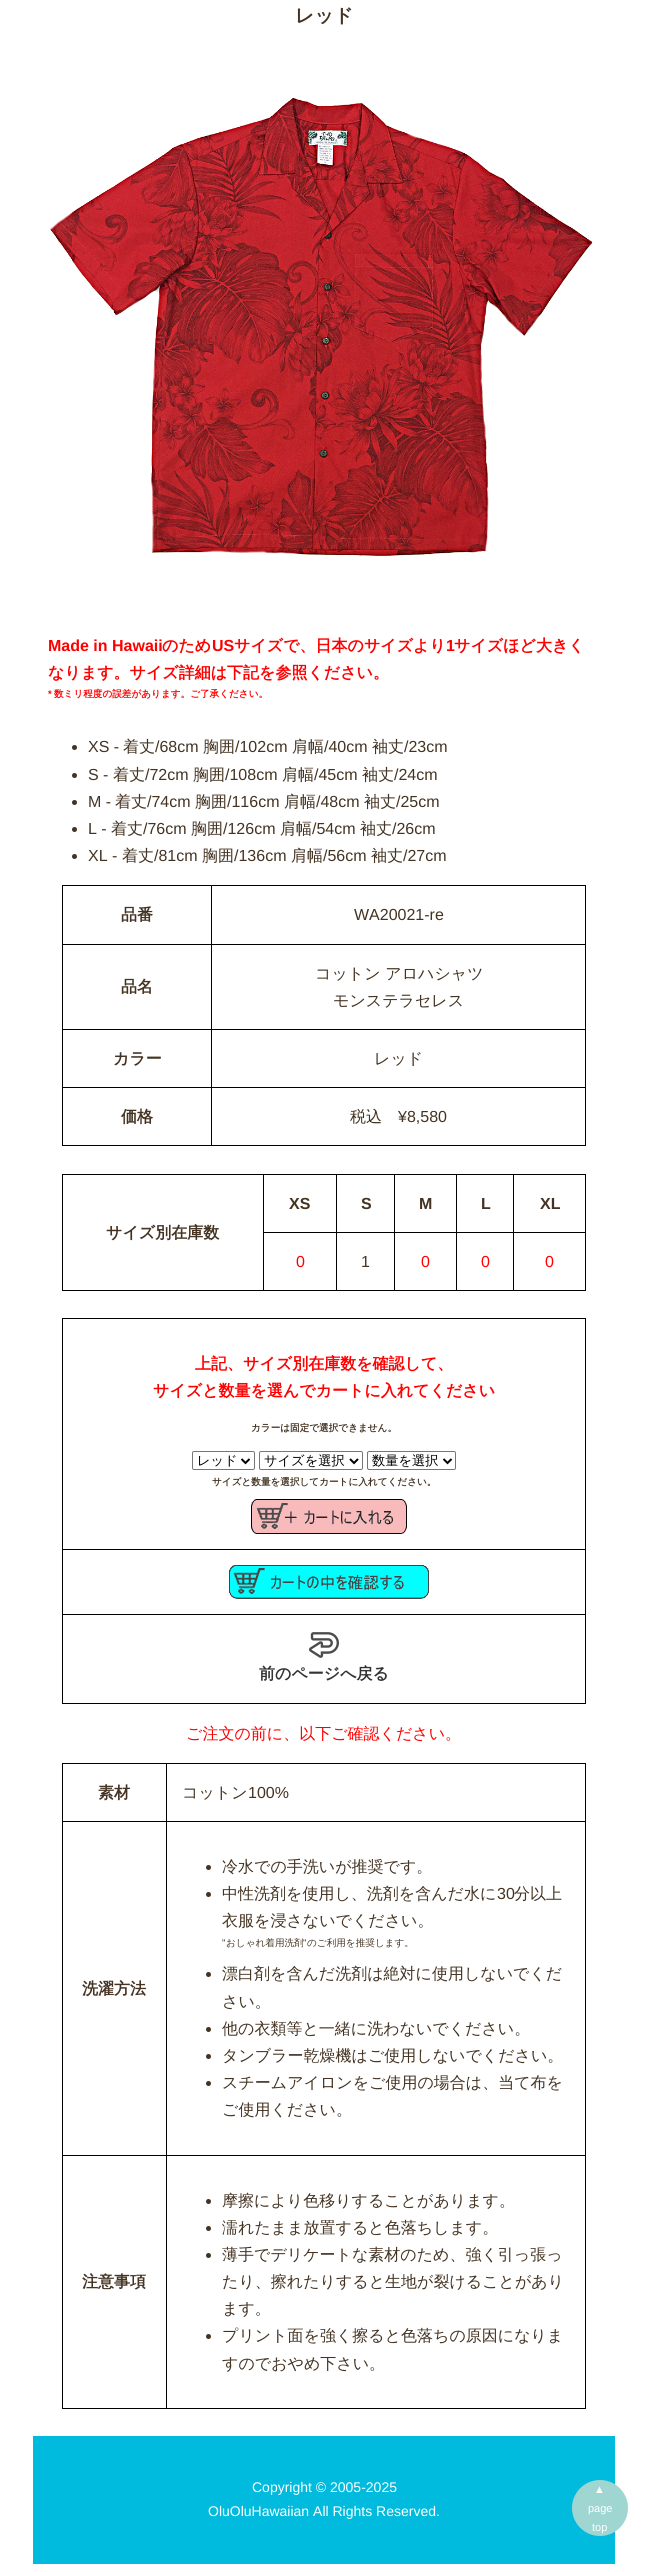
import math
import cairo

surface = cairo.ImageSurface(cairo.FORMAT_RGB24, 648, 2572)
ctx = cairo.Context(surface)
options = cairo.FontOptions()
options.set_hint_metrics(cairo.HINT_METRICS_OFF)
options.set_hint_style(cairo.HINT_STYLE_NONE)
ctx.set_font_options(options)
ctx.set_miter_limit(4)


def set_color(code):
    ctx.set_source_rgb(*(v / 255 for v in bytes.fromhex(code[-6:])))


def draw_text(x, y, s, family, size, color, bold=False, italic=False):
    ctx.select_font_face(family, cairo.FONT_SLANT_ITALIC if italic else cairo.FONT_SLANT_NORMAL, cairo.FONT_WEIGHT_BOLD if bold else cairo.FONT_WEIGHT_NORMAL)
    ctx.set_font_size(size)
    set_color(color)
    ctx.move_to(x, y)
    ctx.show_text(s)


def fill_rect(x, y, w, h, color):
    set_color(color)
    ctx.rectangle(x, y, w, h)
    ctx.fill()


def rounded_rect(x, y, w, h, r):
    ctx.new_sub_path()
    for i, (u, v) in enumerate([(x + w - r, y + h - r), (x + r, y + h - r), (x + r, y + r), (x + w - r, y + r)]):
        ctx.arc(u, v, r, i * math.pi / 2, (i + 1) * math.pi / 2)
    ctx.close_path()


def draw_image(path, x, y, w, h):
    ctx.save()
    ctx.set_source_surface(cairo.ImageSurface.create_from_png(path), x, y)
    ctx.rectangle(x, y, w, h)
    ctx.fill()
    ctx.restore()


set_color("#ffffff")
ctx.paint()
draw_text(295, 22, "レッド", "WenQuanYi Zen Hei", 19, "#443322", bold=True)
draw_image("assets/img1.png", 50, 97, 543, 461)
draw_text(48, 651, "Made in Hawaii", "Liberation Sans", 16, "#ff0000", bold=True)
draw_text(162, 651, "のため", "WenQuanYi Zen Hei", 16, "#ff0000", bold=True)
draw_text(212, 651, "US", "Liberation Sans", 16, "#ff0000", bold=True)
draw_text(234, 651, "サイズで、日本のサイズより", "WenQuanYi Zen Hei", 16, "#ff0000", bold=True)
draw_text(446, 651, "1", "Liberation Sans", 16, "#ff0000", bold=True)
draw_text(454, 651, "サイズほど大きく", "WenQuanYi Zen Hei", 16, "#ff0000", bold=True)
draw_text(48, 678, "なります。サイズ詳細は下記を参照ください。", "WenQuanYi Zen Hei", 16, "#ff0000", bold=True)
draw_text(48, 697, "*", "Liberation Sans", 9.6, "#ff0000", bold=True)
draw_text(54, 697, "数ミリ程度の誤差があります。ご了承ください。", "WenQuanYi Zen Hei", 9.6, "#ff0000", bold=True)
set_color("#443322")
ctx.new_path()
ctx.arc(74.5, 747.5, 2.5, 0, 2 * math.pi)
ctx.fill()
draw_text(88, 752, "XS -", "Liberation Sans", 16, "#443322")
draw_text(123, 752, "着丈", "WenQuanYi Zen Hei Medium", 16, "#443322")
draw_text(155, 752, "/68cm", "Liberation Sans", 16, "#443322")
draw_text(203, 752, "胸囲", "WenQuanYi Zen Hei Medium", 16, "#443322")
draw_text(235, 752, "/102cm", "Liberation Sans", 16, "#443322")
draw_text(292, 752, "肩幅", "WenQuanYi Zen Hei Medium", 16, "#443322")
draw_text(324, 752, "/40cm", "Liberation Sans", 16, "#443322")
draw_text(372, 752, "袖丈", "WenQuanYi Zen Hei Medium", 16, "#443322")
draw_text(404, 752, "/23cm", "Liberation Sans", 16, "#443322")
ctx.new_path()
ctx.arc(74.5, 775.5, 2.5, 0, 2 * math.pi)
ctx.fill()
draw_text(88, 780, "S -", "Liberation Sans", 16, "#443322")
draw_text(113, 780, "着丈", "WenQuanYi Zen Hei Medium", 16, "#443322")
draw_text(145, 780, "/72cm", "Liberation Sans", 16, "#443322")
draw_text(193, 780, "胸囲", "WenQuanYi Zen Hei Medium", 16, "#443322")
draw_text(225, 780, "/108cm", "Liberation Sans", 16, "#443322")
draw_text(282, 780, "肩幅", "WenQuanYi Zen Hei Medium", 16, "#443322")
draw_text(314, 780, "/45cm", "Liberation Sans", 16, "#443322")
draw_text(362, 780, "袖丈", "WenQuanYi Zen Hei Medium", 16, "#443322")
draw_text(394, 780, "/24cm", "Liberation Sans", 16, "#443322")
ctx.new_path()
ctx.arc(74.5, 802.5, 2.5, 0, 2 * math.pi)
ctx.fill()
draw_text(88, 807, "M -", "Liberation Sans", 16, "#443322")
draw_text(115, 807, "着丈", "WenQuanYi Zen Hei Medium", 16, "#443322")
draw_text(147, 807, "/74cm", "Liberation Sans", 16, "#443322")
draw_text(195, 807, "胸囲", "WenQuanYi Zen Hei Medium", 16, "#443322")
draw_text(227, 807, "/116cm", "Liberation Sans", 16, "#443322")
draw_text(284, 807, "肩幅", "WenQuanYi Zen Hei Medium", 16, "#443322")
draw_text(316, 807, "/48cm", "Liberation Sans", 16, "#443322")
draw_text(364, 807, "袖丈", "WenQuanYi Zen Hei Medium", 16, "#443322")
draw_text(396, 807, "/25cm", "Liberation Sans", 16, "#443322")
ctx.new_path()
ctx.arc(74.5, 829.5, 2.5, 0, 2 * math.pi)
ctx.fill()
draw_text(88, 834, "L -", "Liberation Sans", 16, "#443322")
draw_text(111, 834, "着丈", "WenQuanYi Zen Hei Medium", 16, "#443322")
draw_text(143, 834, "/76cm", "Liberation Sans", 16, "#443322")
draw_text(191, 834, "胸囲", "WenQuanYi Zen Hei Medium", 16, "#443322")
draw_text(223, 834, "/126cm", "Liberation Sans", 16, "#443322")
draw_text(280, 834, "肩幅", "WenQuanYi Zen Hei Medium", 16, "#443322")
draw_text(312, 834, "/54cm", "Liberation Sans", 16, "#443322")
draw_text(360, 834, "袖丈", "WenQuanYi Zen Hei Medium", 16, "#443322")
draw_text(392, 834, "/26cm", "Liberation Sans", 16, "#443322")
ctx.new_path()
ctx.arc(74.5, 856.5, 2.5, 0, 2 * math.pi)
ctx.fill()
draw_text(88, 861, "XL -", "Liberation Sans", 16, "#443322")
draw_text(122, 861, "着丈", "WenQuanYi Zen Hei Medium", 16, "#443322")
draw_text(154, 861, "/81cm", "Liberation Sans", 16, "#443322")
draw_text(202, 861, "胸囲", "WenQuanYi Zen Hei Medium", 16, "#443322")
draw_text(234, 861, "/136cm", "Liberation Sans", 16, "#443322")
draw_text(291, 861, "肩幅", "WenQuanYi Zen Hei Medium", 16, "#443322")
draw_text(323, 861, "/56cm", "Liberation Sans", 16, "#443322")
draw_text(371, 861, "袖丈", "WenQuanYi Zen Hei Medium", 16, "#443322")
draw_text(403, 861, "/27cm", "Liberation Sans", 16, "#443322")
fill_rect(62, 885, 524, 1, "#000000")
fill_rect(585, 885, 1, 261, "#000000")
fill_rect(62, 1145, 524, 1, "#000000")
fill_rect(62, 885, 1, 261, "#000000")
draw_text(121, 920, "品番", "WenQuanYi Zen Hei", 16, "#443322", bold=True)
fill_rect(211, 944, 375, 1, "#000000")
fill_rect(211, 1029, 375, 1, "#000000")
fill_rect(211, 1087, 375, 1, "#000000")
fill_rect(211, 1087, 1, 59, "#000000")
fill_rect(62, 1087, 150, 1, "#000000")
fill_rect(211, 1029, 1, 59, "#000000")
fill_rect(62, 1029, 150, 1, "#000000")
fill_rect(211, 944, 1, 86, "#000000")
fill_rect(62, 944, 150, 1, "#000000")
fill_rect(211, 885, 1, 60, "#000000")
draw_text(354, 920, "WA20021-re", "Liberation Sans", 16, "#443322")
draw_text(121, 992, "品名", "WenQuanYi Zen Hei", 16, "#443322", bold=True)
draw_text(315, 979, "コットン アロハシャツ", "WenQuanYi Zen Hei Medium", 16, "#443322")
draw_text(333, 1006, "モンステラセレス", "WenQuanYi Zen Hei Medium", 16, "#443322")
draw_text(113, 1064, "カラー", "WenQuanYi Zen Hei", 16, "#443322", bold=True)
draw_text(374, 1064, "レッド", "WenQuanYi Zen Hei Medium", 16, "#443322")
draw_text(121, 1122, "価格", "WenQuanYi Zen Hei", 16, "#443322", bold=True)
draw_text(350, 1122, "税込", "WenQuanYi Zen Hei Medium", 16, "#443322")
draw_text(398, 1122, "¥8,580", "Liberation Sans", 16, "#443322")
fill_rect(62, 1174, 524, 1, "#000000")
fill_rect(585, 1174, 1, 117, "#000000")
fill_rect(62, 1290, 524, 1, "#000000")
fill_rect(62, 1174, 1, 117, "#000000")
draw_text(289, 1209, "XS", "Liberation Sans", 16, "#443322", bold=True)
fill_rect(513, 1232, 73, 1, "#000000")
fill_rect(513, 1232, 1, 59, "#000000")
fill_rect(456, 1232, 58, 1, "#000000")
fill_rect(456, 1232, 1, 59, "#000000")
fill_rect(394, 1232, 63, 1, "#000000")
fill_rect(394, 1232, 1, 59, "#000000")
fill_rect(336, 1232, 59, 1, "#000000")
fill_rect(336, 1232, 1, 59, "#000000")
fill_rect(263, 1232, 74, 1, "#000000")
fill_rect(336, 1174, 1, 59, "#000000")
draw_text(361, 1209, "S", "Liberation Sans", 16, "#443322", bold=True)
fill_rect(394, 1174, 1, 59, "#000000")
draw_text(419, 1209, "M", "Liberation Sans", 16, "#443322", bold=True)
fill_rect(456, 1174, 1, 59, "#000000")
draw_text(481, 1209, "L", "Liberation Sans", 16, "#443322", bold=True)
fill_rect(513, 1174, 1, 59, "#000000")
draw_text(540, 1209, "XL", "Liberation Sans", 16, "#443322", bold=True)
draw_text(106, 1238, "サイズ別在庫数", "WenQuanYi Zen Hei", 16, "#443322", bold=True)
fill_rect(263, 1174, 1, 117, "#000000")
draw_text(296, 1267, "0", "Liberation Sans", 16, "#ff0000")
draw_text(361, 1267, "1", "Liberation Sans", 16, "#443322")
draw_text(421, 1267, "0", "Liberation Sans", 16, "#ff0000")
draw_text(481, 1267, "0", "Liberation Sans", 16, "#ff0000")
draw_text(545, 1267, "0", "Liberation Sans", 16, "#ff0000")
fill_rect(62, 1318, 524, 1, "#000000")
fill_rect(585, 1318, 1, 386, "#000000")
fill_rect(62, 1703, 524, 1, "#000000")
fill_rect(62, 1318, 1, 386, "#000000")
draw_text(195, 1369, "上記、サイズ別在庫数を確認して、", "WenQuanYi Zen Hei", 16, "#ff0000", bold=True)
draw_text(153, 1396, "サイズと数量を選んでカートに入れてください", "WenQuanYi Zen Hei", 16, "#ff0000", bold=True)
draw_text(251, 1431, "カラーは固定で選択できません。", "WenQuanYi Zen Hei", 9.6, "#443322", bold=True)
rounded_rect(192.5, 1451.5, 62, 18, 1.5)
set_color("#767676")
ctx.set_line_width(1)
ctx.stroke()
ctx.new_path()
ctx.move_to(241.5, 1459)
ctx.line_to(245.5, 1463)
ctx.line_to(249.5, 1459)
set_color("#000000")
ctx.set_line_width(2)
ctx.stroke()
draw_text(197, 1465, "レッド", "WenQuanYi Zen Hei Medium", 13.25, "#000000")
rounded_rect(259.5, 1451.5, 103, 18, 1.5)
set_color("#767676")
ctx.set_line_width(1)
ctx.stroke()
ctx.new_path()
ctx.move_to(350, 1459)
ctx.line_to(354, 1463)
ctx.line_to(358, 1459)
set_color("#000000")
ctx.set_line_width(2)
ctx.stroke()
draw_text(264, 1465, "サイズを選択", "WenQuanYi Zen Hei Medium", 13.25, "#000000")
rounded_rect(367.5, 1451.5, 88, 18, 1.5)
set_color("#767676")
ctx.set_line_width(1)
ctx.stroke()
ctx.new_path()
ctx.move_to(443.5, 1459)
ctx.line_to(447.5, 1463)
ctx.line_to(451.5, 1459)
set_color("#000000")
ctx.set_line_width(2)
ctx.stroke()
draw_text(372, 1465, "数量を選択", "WenQuanYi Zen Hei Medium", 13.25, "#000000")
draw_text(212, 1485, "サイズと数量を選択してカートに入れてください。", "WenQuanYi Zen Hei", 9.6, "#443322", bold=True)
draw_image("assets/img2.png", 251, 1499, 156, 35)
fill_rect(62, 1549, 524, 1, "#000000")
draw_image("assets/img3.png", 229, 1565, 200, 34)
fill_rect(62, 1614, 524, 1, "#000000")
draw_image("assets/img4.png", 309, 1632, 30, 26)
draw_text(259, 1679, "前のページへ戻る", "WenQuanYi Zen Hei", 16, "#333333", bold=True)
draw_text(186, 1739, "ご注文の前に、以下ご確認ください。", "WenQuanYi Zen Hei Medium", 16, "#ff0000")
fill_rect(62, 1763, 524, 1, "#000000")
fill_rect(585, 1763, 1, 646, "#000000")
fill_rect(62, 2408, 524, 1, "#000000")
fill_rect(62, 1763, 1, 646, "#000000")
draw_text(98, 1798, "素材", "WenQuanYi Zen Hei", 16, "#443322", bold=True)
fill_rect(166, 1821, 420, 1, "#000000")
fill_rect(166, 2155, 420, 1, "#000000")
fill_rect(166, 2155, 1, 254, "#000000")
fill_rect(62, 2155, 105, 1, "#000000")
fill_rect(166, 1821, 1, 335, "#000000")
fill_rect(62, 1821, 105, 1, "#000000")
fill_rect(166, 1763, 1, 59, "#000000")
draw_text(182, 1798, "コットン", "WenQuanYi Zen Hei Medium", 16, "#443322")
draw_text(248, 1798, "100%", "Liberation Sans", 16, "#443322")
draw_text(82, 1994, "洗濯方法", "WenQuanYi Zen Hei", 16, "#443322", bold=True)
ctx.new_path()
ctx.arc(208.5, 1867.5, 2.5, 0, 2 * math.pi)
ctx.fill()
draw_text(222, 1872, "冷水での手洗いが推奨です。", "WenQuanYi Zen Hei Medium", 16, "#443322")
ctx.new_path()
ctx.arc(208.5, 1894.5, 2.5, 0, 2 * math.pi)
ctx.fill()
draw_text(222, 1899, "中性洗剤を使用し、洗剤を含んだ水に", "WenQuanYi Zen Hei Medium", 16, "#443322")
draw_text(497, 1899, "30", "Liberation Sans", 16, "#443322")
draw_text(514, 1899, "分以上", "WenQuanYi Zen Hei Medium", 16, "#443322")
draw_text(222, 1926, "衣服を浸さないでください。", "WenQuanYi Zen Hei Medium", 16, "#443322")
draw_text(222, 1946, "\"", "Liberation Sans", 9.6, "#443322")
draw_text(226, 1946, "おしゃれ着用洗剤", "WenQuanYi Zen Hei Medium", 9.6, "#443322")
draw_text(303, 1946, "\"", "Liberation Sans", 9.6, "#443322")
draw_text(307, 1946, "のご利用を推奨します。", "WenQuanYi Zen Hei Medium", 9.6, "#443322")
ctx.new_path()
ctx.arc(208.5, 1974.5, 2.5, 0, 2 * math.pi)
ctx.fill()
draw_text(222, 1979, "漂白剤を含んだ洗剤は絶対に使用しないでくだ", "WenQuanYi Zen Hei Medium", 16, "#443322")
draw_text(222, 2007, "さい。", "WenQuanYi Zen Hei Medium", 16, "#443322")
ctx.new_path()
ctx.arc(208.5, 2029.5, 2.5, 0, 2 * math.pi)
ctx.fill()
draw_text(222, 2034, "他の衣類等と一緒に洗わないでください。", "WenQuanYi Zen Hei Medium", 16, "#443322")
ctx.new_path()
ctx.arc(208.5, 2056.5, 2.5, 0, 2 * math.pi)
ctx.fill()
draw_text(222, 2061, "タンブラー乾燥機はご使用しないでください。", "WenQuanYi Zen Hei Medium", 16, "#443322")
ctx.new_path()
ctx.arc(208.5, 2083.5, 2.5, 0, 2 * math.pi)
ctx.fill()
draw_text(222, 2088, "スチームアイロンをご使用の場合は、当て布を", "WenQuanYi Zen Hei Medium", 16, "#443322")
draw_text(222, 2115, "ご使用ください。", "WenQuanYi Zen Hei Medium", 16, "#443322")
draw_text(82, 2287, "注意事項", "WenQuanYi Zen Hei", 16, "#443322", bold=True)
ctx.new_path()
ctx.arc(208.5, 2201.5, 2.5, 0, 2 * math.pi)
ctx.fill()
draw_text(222, 2206, "摩擦により色移りすることがあります。", "WenQuanYi Zen Hei Medium", 16, "#443322")
ctx.new_path()
ctx.arc(208.5, 2228.5, 2.5, 0, 2 * math.pi)
ctx.fill()
draw_text(222, 2233, "濡れたまま放置すると色落ちします。", "WenQuanYi Zen Hei Medium", 16, "#443322")
ctx.new_path()
ctx.arc(208.5, 2255.5, 2.5, 0, 2 * math.pi)
ctx.fill()
draw_text(222, 2260, "薄手でデリケートな素材のため、強く引っ張っ", "WenQuanYi Zen Hei Medium", 16, "#443322")
draw_text(222, 2287, "たり、擦れたりすると生地が裂けることがあり", "WenQuanYi Zen Hei Medium", 16, "#443322")
draw_text(222, 2314, "ます。", "WenQuanYi Zen Hei Medium", 16, "#443322")
ctx.new_path()
ctx.arc(208.5, 2336.5, 2.5, 0, 2 * math.pi)
ctx.fill()
draw_text(222, 2341, "プリント面を強く擦ると色落ちの原因になりま", "WenQuanYi Zen Hei Medium", 16, "#443322")
draw_text(222, 2369, "すのでおやめ下さい。", "WenQuanYi Zen Hei Medium", 16, "#443322")
fill_rect(33, 2436, 582, 128, "#00bbdd")
draw_text(252, 2492, "Copyright © 2005-2025", "Liberation Sans", 14, "#ffffff")
draw_text(208, 2516, "OluOluHawaiian All Rights Reserved.", "Liberation Sans", 14, "#ffffff")
set_color("#9fd6d2")
ctx.new_path()
ctx.arc(600, 2508, 28, 0, 2 * math.pi)
ctx.fill()
draw_text(594, 2493, "▲", "Liberation Sans", 11, "#ffffff")
draw_text(588, 2512, "page", "Liberation Sans", 11, "#ffffff")
draw_text(592, 2531, "top", "Liberation Sans", 11, "#ffffff")
surface.write_to_png("output.png")
